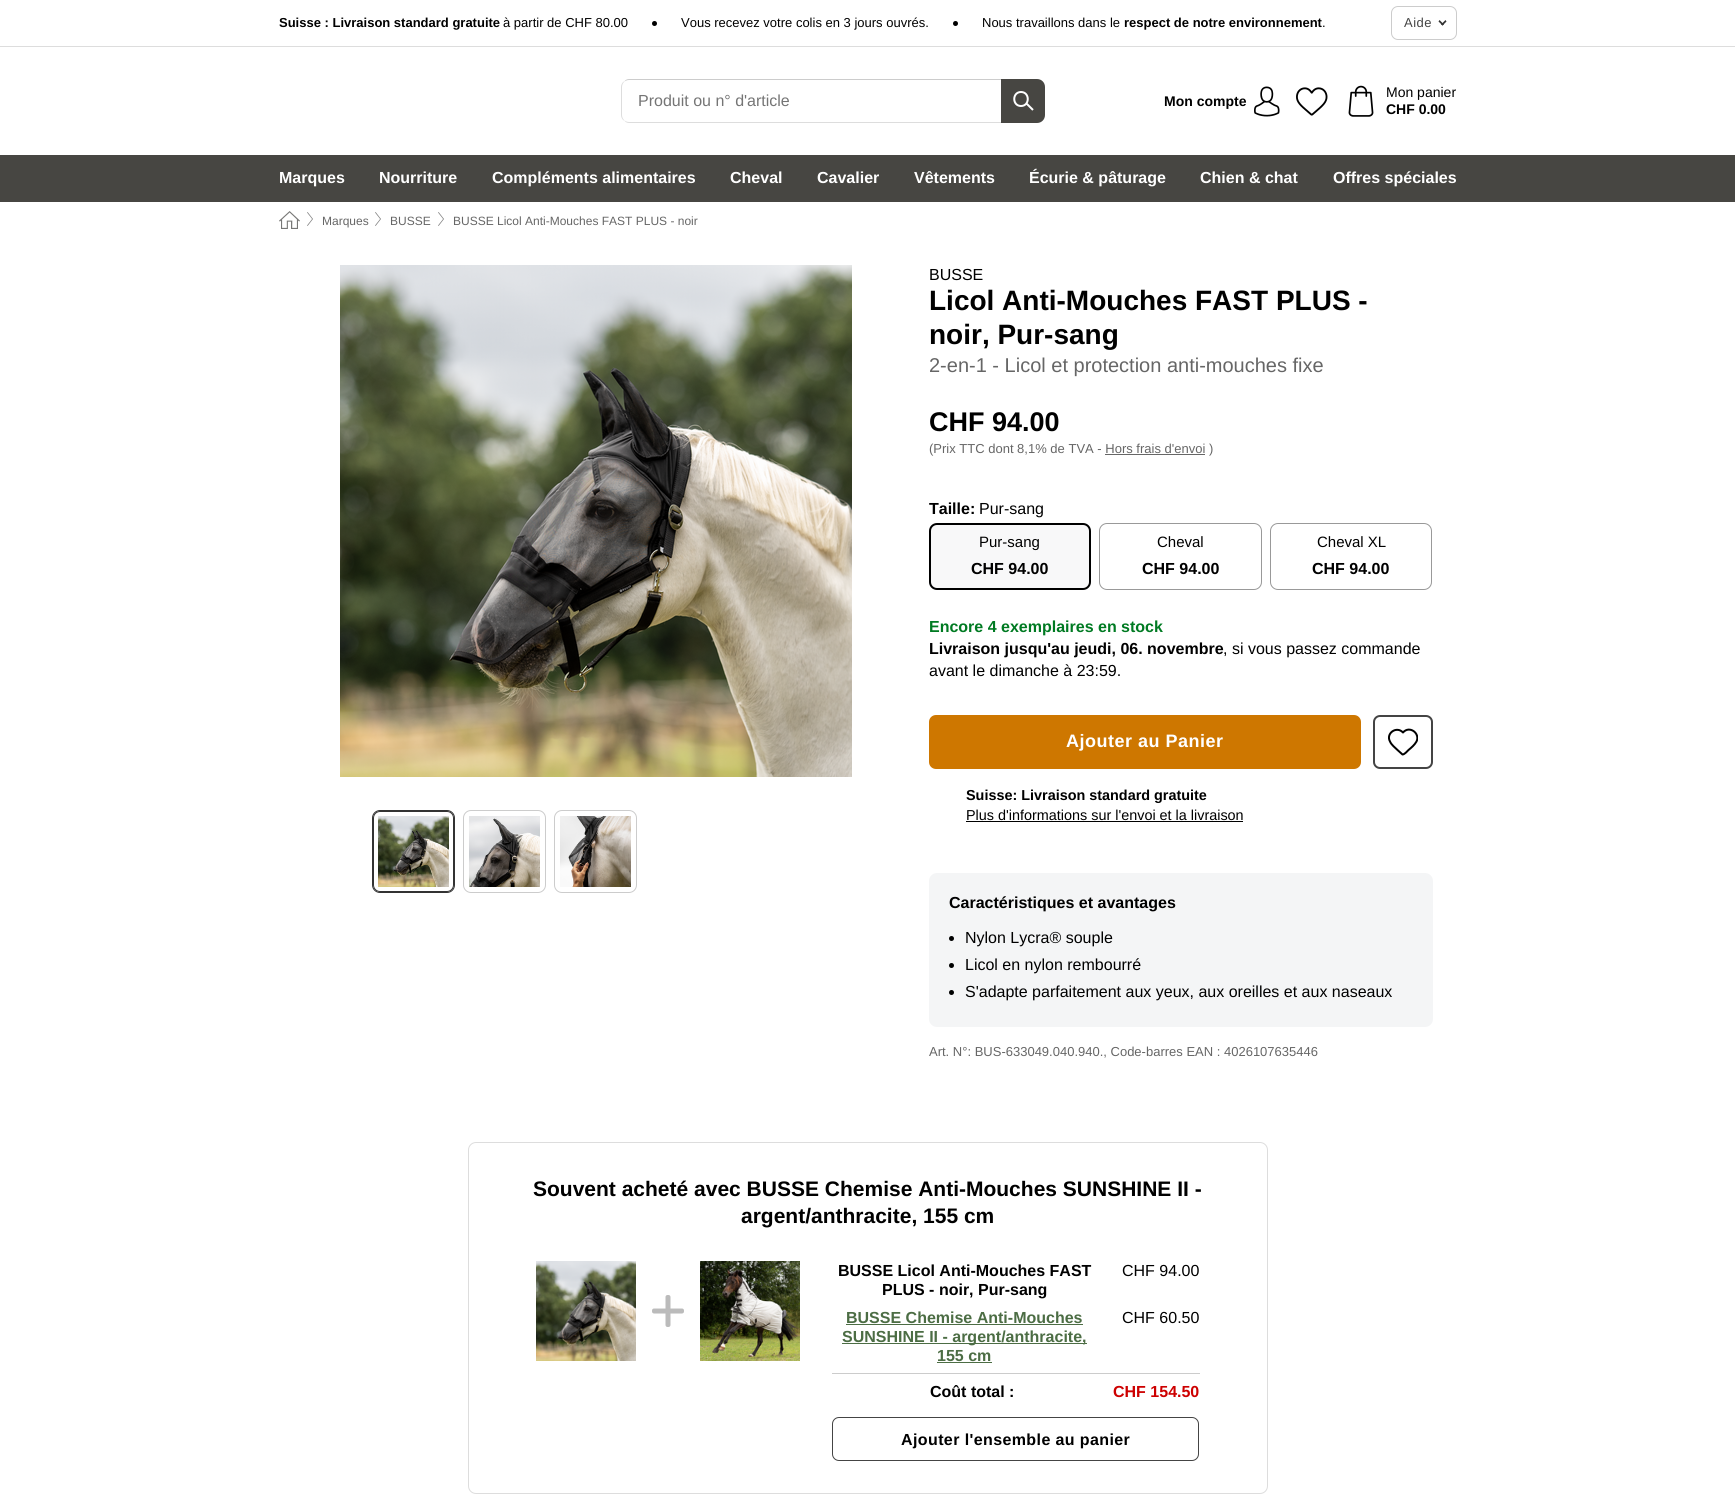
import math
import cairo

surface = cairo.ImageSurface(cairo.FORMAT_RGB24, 1735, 1505)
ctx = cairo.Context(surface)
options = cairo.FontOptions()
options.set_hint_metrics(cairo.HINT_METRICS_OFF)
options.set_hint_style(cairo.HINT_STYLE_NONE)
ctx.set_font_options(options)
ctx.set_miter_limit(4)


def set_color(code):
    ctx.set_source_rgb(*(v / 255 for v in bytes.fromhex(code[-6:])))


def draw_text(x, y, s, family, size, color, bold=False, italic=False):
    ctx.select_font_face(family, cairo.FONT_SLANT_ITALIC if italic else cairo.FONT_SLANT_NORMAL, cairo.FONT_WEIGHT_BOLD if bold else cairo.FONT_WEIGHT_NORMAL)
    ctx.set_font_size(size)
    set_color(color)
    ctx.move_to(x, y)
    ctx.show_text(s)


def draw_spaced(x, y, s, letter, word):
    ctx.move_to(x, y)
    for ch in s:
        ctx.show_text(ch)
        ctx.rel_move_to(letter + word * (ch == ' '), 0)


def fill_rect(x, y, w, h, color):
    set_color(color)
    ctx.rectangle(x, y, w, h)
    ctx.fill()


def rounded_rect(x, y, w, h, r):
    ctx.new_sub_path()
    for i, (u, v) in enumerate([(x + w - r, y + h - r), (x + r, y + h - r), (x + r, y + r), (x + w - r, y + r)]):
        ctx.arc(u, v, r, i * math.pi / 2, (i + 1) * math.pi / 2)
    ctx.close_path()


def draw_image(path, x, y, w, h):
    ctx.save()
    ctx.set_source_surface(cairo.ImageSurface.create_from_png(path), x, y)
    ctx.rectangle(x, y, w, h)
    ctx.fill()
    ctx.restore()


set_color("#ffffff")
ctx.paint()
fill_rect(0, 46, 1735, 1, "#dddddd")
draw_text(279, 27, "Suisse : Livraison standard gratuite", "Liberation Sans", 13, "#000000", bold=True)
draw_text(503, 27, "à partir de CHF 80.00", "Liberation Sans", 13, "#000000")
ctx.new_path()
ctx.arc(654.5, 23.5, 2.5, 0, 2 * math.pi)
ctx.fill()
draw_text(681, 27, "Vous recevez votre colis en 3 jours ouvrés.", "Liberation Sans", 13, "#000000")
ctx.new_path()
ctx.arc(955.5, 23.5, 2.5, 0, 2 * math.pi)
ctx.fill()
draw_text(982, 27, "Nous travaillons dans le", "Liberation Sans", 13, "#000000")
draw_text(1124, 27, "respect de notre environnement", "Liberation Sans", 13, "#000000", bold=True)
draw_text(1322, 27, ".", "Liberation Sans", 13, "#000000")
rounded_rect(1391.5, 6.5, 65, 33, 6.5)
set_color("#cccccc")
ctx.set_line_width(1)
ctx.stroke()
set_color("#444444")
draw_spaced(1404, 27, "Aide", 0.5, 0)
set_color("#333333")
ctx.new_path()
ctx.move_to(1445.5, 20)
ctx.line_to(1446.5, 21.5)
ctx.line_to(1442.5, 25.5)
ctx.line_to(1441, 24.5)
ctx.close_path()
ctx.fill()
ctx.new_path()
ctx.move_to(1439.5, 20)
ctx.line_to(1444, 24.5)
ctx.line_to(1442.5, 25.5)
ctx.line_to(1438.5, 21.5)
ctx.close_path()
ctx.fill()
set_color("#cccccc")
ctx.new_path()
ctx.move_to(629, 79)
ctx.curve_to(627, 79, 625, 80, 624, 82)
ctx.curve_to(625, 81, 627, 80, 629, 80)
ctx.line_to(1001, 80)
ctx.line_to(1001, 79)
ctx.close_path()
ctx.fill()
set_color("#dddddd")
ctx.new_path()
ctx.move_to(1001, 123)
ctx.line_to(1001, 122)
ctx.line_to(629, 122)
ctx.curve_to(627, 122, 625, 121, 624, 120)
ctx.curve_to(625, 122, 627, 123, 629, 123)
ctx.close_path()
ctx.fill()
ctx.new_path()
ctx.move_to(621, 87)
ctx.line_to(621, 115)
ctx.curve_to(621, 117, 622, 119, 623.5, 120.5)
ctx.line_to(624, 120)
ctx.curve_to(623, 119, 622, 117, 622, 115)
ctx.line_to(622, 87)
ctx.curve_to(622, 85, 623, 83, 624, 82)
ctx.line_to(623.5, 81.5)
ctx.curve_to(622, 83, 621, 85, 621, 87)
ctx.close_path()
ctx.fill()
draw_text(638, 106, "Produit ou n° d'article", "Liberation Sans", 16, "#757575")
set_color("#474642")
ctx.new_path()
ctx.move_to(1001, 79)
ctx.line_to(1037, 79)
ctx.curve_to(1041.5, 79, 1045, 82.5, 1045, 87)
ctx.line_to(1045, 115)
ctx.curve_to(1045, 119.5, 1041.5, 123, 1037, 123)
ctx.line_to(1001, 123)
ctx.close_path()
ctx.fill()
ctx.new_path()
ctx.move_to(1021, 92)
ctx.curve_to(1030, 92, 1030, 106, 1021, 106)
ctx.curve_to(1012, 106, 1012, 92, 1021, 92)
ctx.close_path()
ctx.move_to(1027, 104)
ctx.line_to(1033, 110)
set_color("#ffffff")
ctx.set_line_width(2)
ctx.stroke()
draw_text(1164, 106, "Mon compte", "Liberation Sans", 14, "#000000", bold=True)
draw_image("assets/img1.png", 1254, 86, 26, 31)
draw_image("assets/img2.png", 1296, 87, 32, 29)
draw_image("assets/img3.png", 1348, 85, 26, 32)
draw_text(1386, 97, "Mon panier", "Liberation Sans", 14, "#000000")
draw_text(1386, 114, "CHF 0.00", "Liberation Sans", 14, "#000000", bold=True)
fill_rect(0, 155, 1735, 47, "#474642")
draw_text(279, 183, "Marques", "Liberation Sans", 16, "#ffffff", bold=True)
draw_text(379, 183, "Nourriture", "Liberation Sans", 16, "#ffffff", bold=True)
draw_text(492, 183, "Compléments alimentaires", "Liberation Sans", 16, "#ffffff", bold=True)
draw_text(730, 183, "Cheval", "Liberation Sans", 16, "#ffffff", bold=True)
draw_text(817, 183, "Cavalier", "Liberation Sans", 16, "#ffffff", bold=True)
draw_text(914, 183, "Vêtements", "Liberation Sans", 16, "#ffffff", bold=True)
draw_text(1029, 183, "Écurie & pâturage", "Liberation Sans", 16, "#ffffff", bold=True)
draw_text(1200, 183, "Chien & chat", "Liberation Sans", 16, "#ffffff", bold=True)
draw_text(1333, 183, "Offres spéciales", "Liberation Sans", 16, "#ffffff", bold=True)
draw_image("assets/img4.png", 279, 211, 21, 18)
draw_image("assets/img5.png", 307, 212, 6, 14)
draw_text(322, 225, "Marques", "Liberation Sans", 12, "#666666")
draw_image("assets/img5.png", 375, 212, 6, 14)
draw_text(390, 225, "BUSSE", "Liberation Sans", 12, "#666666")
draw_image("assets/img5.png", 438, 212, 6, 14)
draw_text(453, 225, "BUSSE Licol Anti-Mouches FAST PLUS - noir", "Liberation Sans", 12, "#666666")
draw_image("assets/img6.png", 340, 265, 512, 512)
rounded_rect(373.5, 811.5, 80, 80, 6.5)
set_color("#333333")
ctx.set_line_width(1)
ctx.stroke()
rounded_rect(372.5, 810.5, 82, 82, 7.5)
ctx.stroke()
draw_image("assets/img7.png", 378, 816, 71, 71)
rounded_rect(463.5, 810.5, 82, 82, 7.5)
set_color("#cccccc")
ctx.stroke()
draw_image("assets/img8.png", 469, 816, 71, 71)
rounded_rect(554.5, 810.5, 82, 82, 7.5)
ctx.stroke()
draw_image("assets/img9.png", 560, 816, 71, 71)
draw_text(929, 280, "BUSSE", "Liberation Sans", 16, "#000000")
draw_text(929, 310, "Licol Anti-Mouches FAST PLUS -", "Liberation Sans", 28, "#000000", bold=True)
draw_text(929, 344, "noir, Pur-sang", "Liberation Sans", 28, "#000000", bold=True)
draw_text(929, 372, "2-en-1 - Licol et protection anti-mouches fixe", "Liberation Sans", 20, "#666666")
draw_text(929, 431, "CHF 94.00", "Liberation Sans", 27, "#000000", bold=True)
draw_text(929, 453, "(Prix TTC dont 8,1% de TVA - Hors frais d'envoi )", "Liberation Sans", 13, "#666666")
fill_rect(1105, 454, 100, 1, "#666666")
draw_text(929, 514, "Taille:", "Liberation Sans", 16, "#000000", bold=True)
draw_text(979, 514, "Pur-sang", "Liberation Sans", 16, "#000000")
set_color("#f8f8f9")
rounded_rect(929, 523, 162, 67, 8)
ctx.fill()
rounded_rect(930, 524, 160, 65, 7)
set_color("#000000")
ctx.set_line_width(2)
ctx.stroke()
draw_text(979, 547, "Pur-sang", "Liberation Sans", 15, "#000000")
draw_text(971, 574, "CHF 94.00", "Liberation Sans", 16, "#000000", bold=True)
rounded_rect(1099.5, 523.5, 162, 66, 7.5)
set_color("#999999")
ctx.set_line_width(1)
ctx.stroke()
draw_text(1157, 547, "Cheval", "Liberation Sans", 15, "#000000")
draw_text(1142, 574, "CHF 94.00", "Liberation Sans", 16, "#000000", bold=True)
rounded_rect(1270.5, 523.5, 161, 66, 7.5)
set_color("#999999")
ctx.stroke()
draw_text(1317, 547, "Cheval XL", "Liberation Sans", 15, "#000000")
draw_text(1312, 574, "CHF 94.00", "Liberation Sans", 16, "#000000", bold=True)
draw_text(929, 632, "Encore 4 exemplaires en stock", "Liberation Sans", 16, "#007a22", bold=True)
draw_text(929, 654, "Livraison jusqu'au jeudi, 06. novembre", "Liberation Sans", 16, "#000000", bold=True)
draw_text(1223, 654, ", si vous passez commande", "Liberation Sans", 16, "#000000")
draw_text(929, 676, "avant le dimanche à 23:59.", "Liberation Sans", 16, "#000000")
set_color("#ce7700")
rounded_rect(929, 715, 432, 54, 7)
ctx.fill()
ctx.select_font_face("Liberation Sans", cairo.FONT_SLANT_NORMAL, cairo.FONT_WEIGHT_BOLD)
ctx.set_font_size(18)
set_color("#ffffff")
draw_spaced(1066, 747, "Ajouter au Panier", 0.5, 0)
rounded_rect(1374, 716, 58, 52, 6)
set_color("#444444")
ctx.set_line_width(2)
ctx.stroke()
ctx.save()
ctx.rectangle(1388, 728, 30, 28)
ctx.clip()
ctx.new_path()
ctx.move_to(1403, 732.5)
ctx.curve_to(1396.5, 725.5, 1385.5, 733.5, 1390, 741.5)
ctx.curve_to(1391.5, 745, 1395, 747.5, 1397.5, 750)
ctx.line_to(1402.5, 754.5)
ctx.curve_to(1404.5, 754.5, 1407.5, 751, 1408.5, 750)
ctx.curve_to(1411.5, 747.5, 1414.5, 745, 1416.5, 741.5)
ctx.curve_to(1420.5, 733.5, 1409.5, 725, 1403, 732.5)
ctx.close_path()
set_color("#000000")
ctx.set_line_cap(cairo.LINE_CAP_ROUND)
ctx.set_line_join(cairo.LINE_JOIN_ROUND)
ctx.stroke()
ctx.restore()
draw_text(966, 800, "Suisse: Livraison standard gratuite", "Liberation Sans", 14.4, "#000000", bold=True)
draw_text(966, 820, "Plus d'informations sur l'envoi et la livraison", "Liberation Sans", 14.4, "#000000")
fill_rect(966, 821, 277, 1, "#000000")
set_color("#f4f5f6")
rounded_rect(929, 873, 504, 154, 8)
ctx.fill()
draw_text(949, 908, "Caractéristiques et avantages", "Liberation Sans", 16, "#000000", bold=True)
ctx.new_path()
ctx.arc(951.5, 938.5, 2.5, 0, 2 * math.pi)
ctx.fill()
draw_text(965, 943, "Nylon Lycra® souple", "Liberation Sans", 16, "#000000")
ctx.new_path()
ctx.arc(951.5, 965.5, 2.5, 0, 2 * math.pi)
ctx.fill()
draw_text(965, 970, "Licol en nylon rembourré", "Liberation Sans", 16, "#000000")
ctx.new_path()
ctx.arc(951.5, 992.5, 2.5, 0, 2 * math.pi)
ctx.fill()
draw_text(965, 997, "S'adapte parfaitement aux yeux, aux oreilles et aux naseaux", "Liberation Sans", 16, "#000000")
draw_text(929, 1056, "Art. N°: BUS-633049.040.940., Code-barres EAN : 4026107635446", "Liberation Sans", 13, "#666666")
rounded_rect(468.5, 1142.5, 799, 351, 7.5)
set_color("#dddddd")
ctx.set_line_width(1)
ctx.stroke()
draw_text(533, 1196, "Souvent acheté avec BUSSE Chemise Anti-Mouches SUNSHINE II -", "Liberation Sans", 21, "#000000", bold=True)
draw_text(741, 1223, "argent/anthracite, 155 cm", "Liberation Sans", 21, "#000000", bold=True)
draw_image("assets/img10.png", 536, 1261, 100, 100)
draw_image("assets/img11.png", 652, 1295, 32, 32)
draw_image("assets/img12.png", 700, 1261, 100, 100)
draw_text(838, 1276, "BUSSE Licol Anti-Mouches FAST", "Liberation Sans", 16, "#000000", bold=True)
draw_text(882, 1295, "PLUS - noir, Pur-sang", "Liberation Sans", 16, "#000000", bold=True)
draw_text(1122, 1276, "CHF 94.00", "Liberation Sans", 16, "#000000")
draw_text(846, 1323, "BUSSE Chemise Anti-Mouches", "Liberation Sans", 16, "#4c6d44", bold=True)
fill_rect(846, 1324, 237, 1, "#4c6d44")
fill_rect(842, 1343, 245, 1, "#4c6d44")
draw_text(842, 1342, "SUNSHINE II - argent/anthracite,", "Liberation Sans", 16, "#4c6d44", bold=True)
draw_text(937, 1361, "155 cm", "Liberation Sans", 16, "#4c6d44", bold=True)
fill_rect(937, 1362, 55, 1, "#4c6d44")
draw_text(1122, 1323, "CHF 60.50", "Liberation Sans", 16, "#000000")
draw_text(930, 1397, "Coût total :", "Liberation Sans", 16, "#000000", bold=True)
fill_rect(832, 1373, 368, 1, "#cccccc")
draw_text(1113, 1397, "CHF 154.50", "Liberation Sans", 16, "#cd0000", bold=True)
rounded_rect(832.5, 1417.5, 366, 43, 6.5)
set_color("#444444")
ctx.stroke()
set_color("#000000")
draw_spaced(901, 1445, "Ajouter l'ensemble au panier", 0.4, 0)
surface.write_to_png("output.png")
